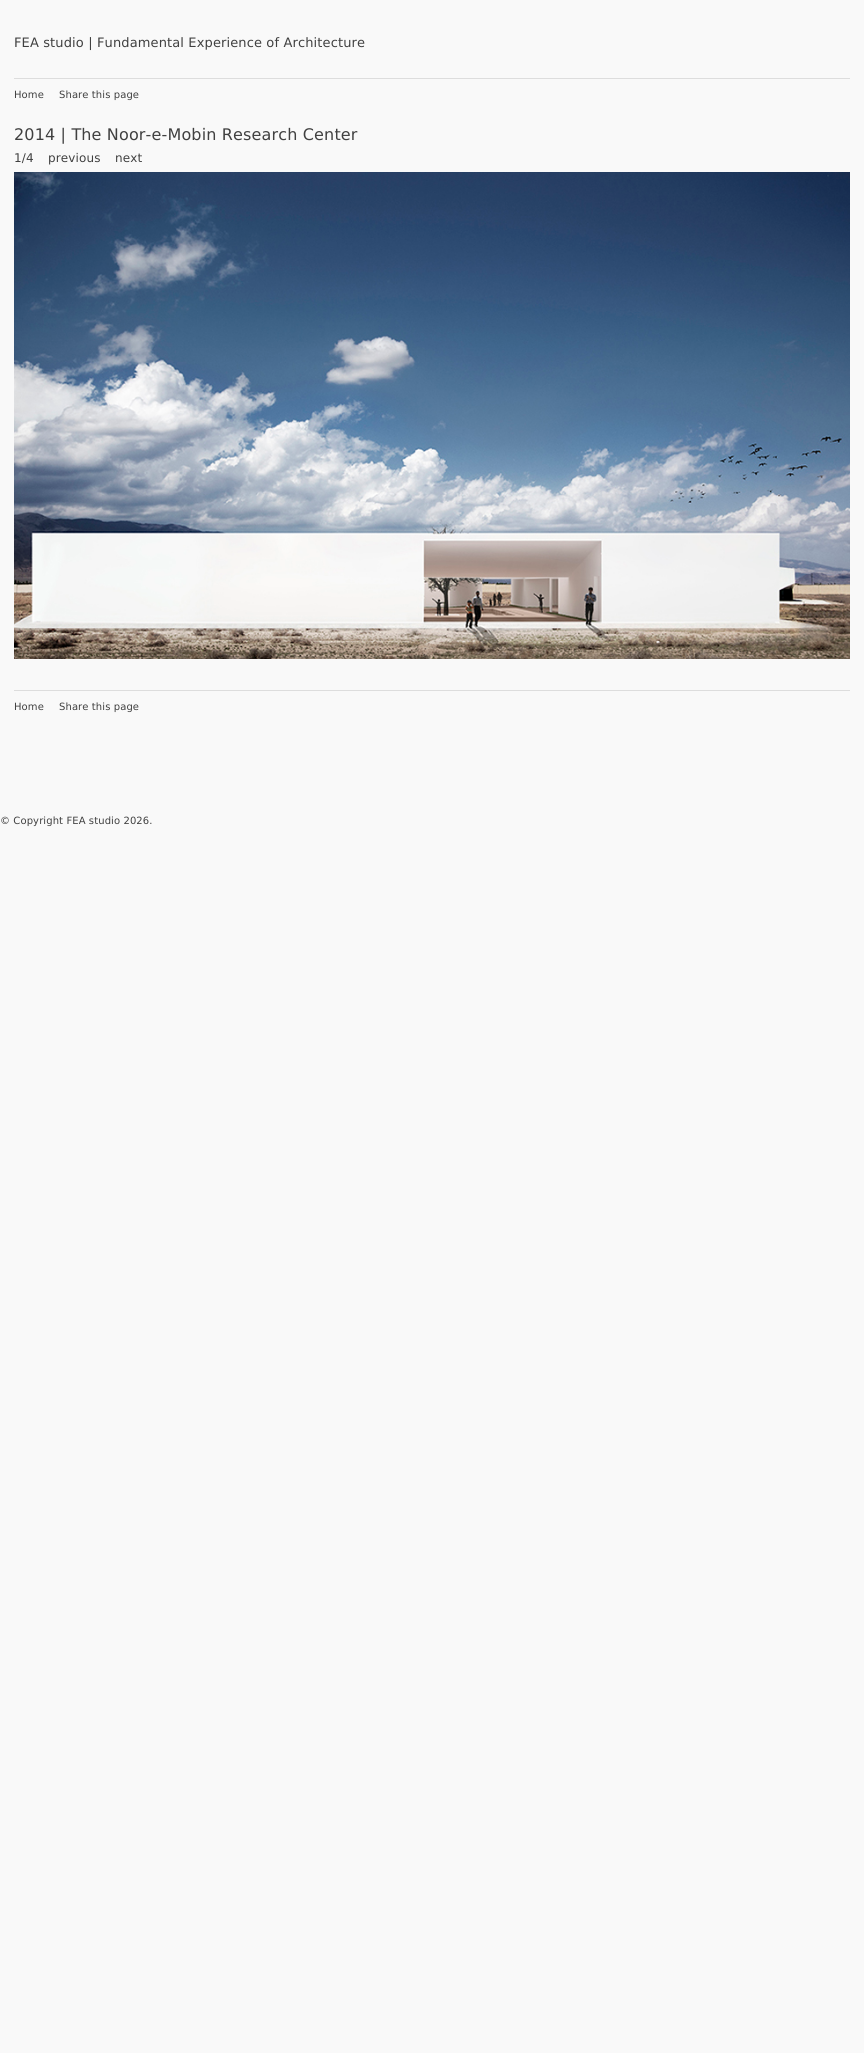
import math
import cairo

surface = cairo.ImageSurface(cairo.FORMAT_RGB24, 864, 2053)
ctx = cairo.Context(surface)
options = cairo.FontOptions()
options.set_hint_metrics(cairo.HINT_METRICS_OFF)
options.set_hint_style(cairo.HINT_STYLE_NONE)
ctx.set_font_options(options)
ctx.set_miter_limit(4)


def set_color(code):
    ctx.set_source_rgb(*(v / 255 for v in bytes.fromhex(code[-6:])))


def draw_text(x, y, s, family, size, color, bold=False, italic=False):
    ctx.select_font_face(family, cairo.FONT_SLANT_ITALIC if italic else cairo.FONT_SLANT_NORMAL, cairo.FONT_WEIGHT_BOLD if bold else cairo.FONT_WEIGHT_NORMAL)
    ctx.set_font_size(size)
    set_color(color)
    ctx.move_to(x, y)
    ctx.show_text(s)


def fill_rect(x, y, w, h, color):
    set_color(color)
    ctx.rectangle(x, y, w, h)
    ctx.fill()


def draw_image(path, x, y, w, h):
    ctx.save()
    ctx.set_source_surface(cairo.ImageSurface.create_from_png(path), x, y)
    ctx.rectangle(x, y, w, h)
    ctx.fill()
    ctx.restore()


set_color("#f9f9f9")
ctx.paint()
draw_text(14, 47, "FEA studio | Fundamental Experience of Architecture", "DejaVu Sans", 13, "#404040")
fill_rect(14, 78, 836, 1, "#dddddd")
draw_text(14, 98, "Home", "DejaVu Sans", 10, "#404040")
draw_text(59, 98, "Share this page", "DejaVu Sans", 10, "#404040")
draw_text(14, 140, "2014 | The Noor-e-Mobin Research Center", "DejaVu Sans", 16, "#404040")
draw_text(14, 162, "1/4", "DejaVu Sans", 12, "#404040")
draw_text(48, 162, "previous", "DejaVu Sans", 12, "#404040")
draw_text(115, 162, "next", "DejaVu Sans", 12, "#404040")
draw_image("assets/img1.png", 14, 172, 836, 487)
fill_rect(14, 690, 836, 1, "#dddddd")
draw_text(14, 710, "Home", "DejaVu Sans", 10, "#404040")
draw_text(59, 710, "Share this page", "DejaVu Sans", 10, "#404040")
draw_text(0, 824, "© Copyright FEA studio 2026.", "DejaVu Sans", 10, "#404040")
surface.write_to_png("output.png")
